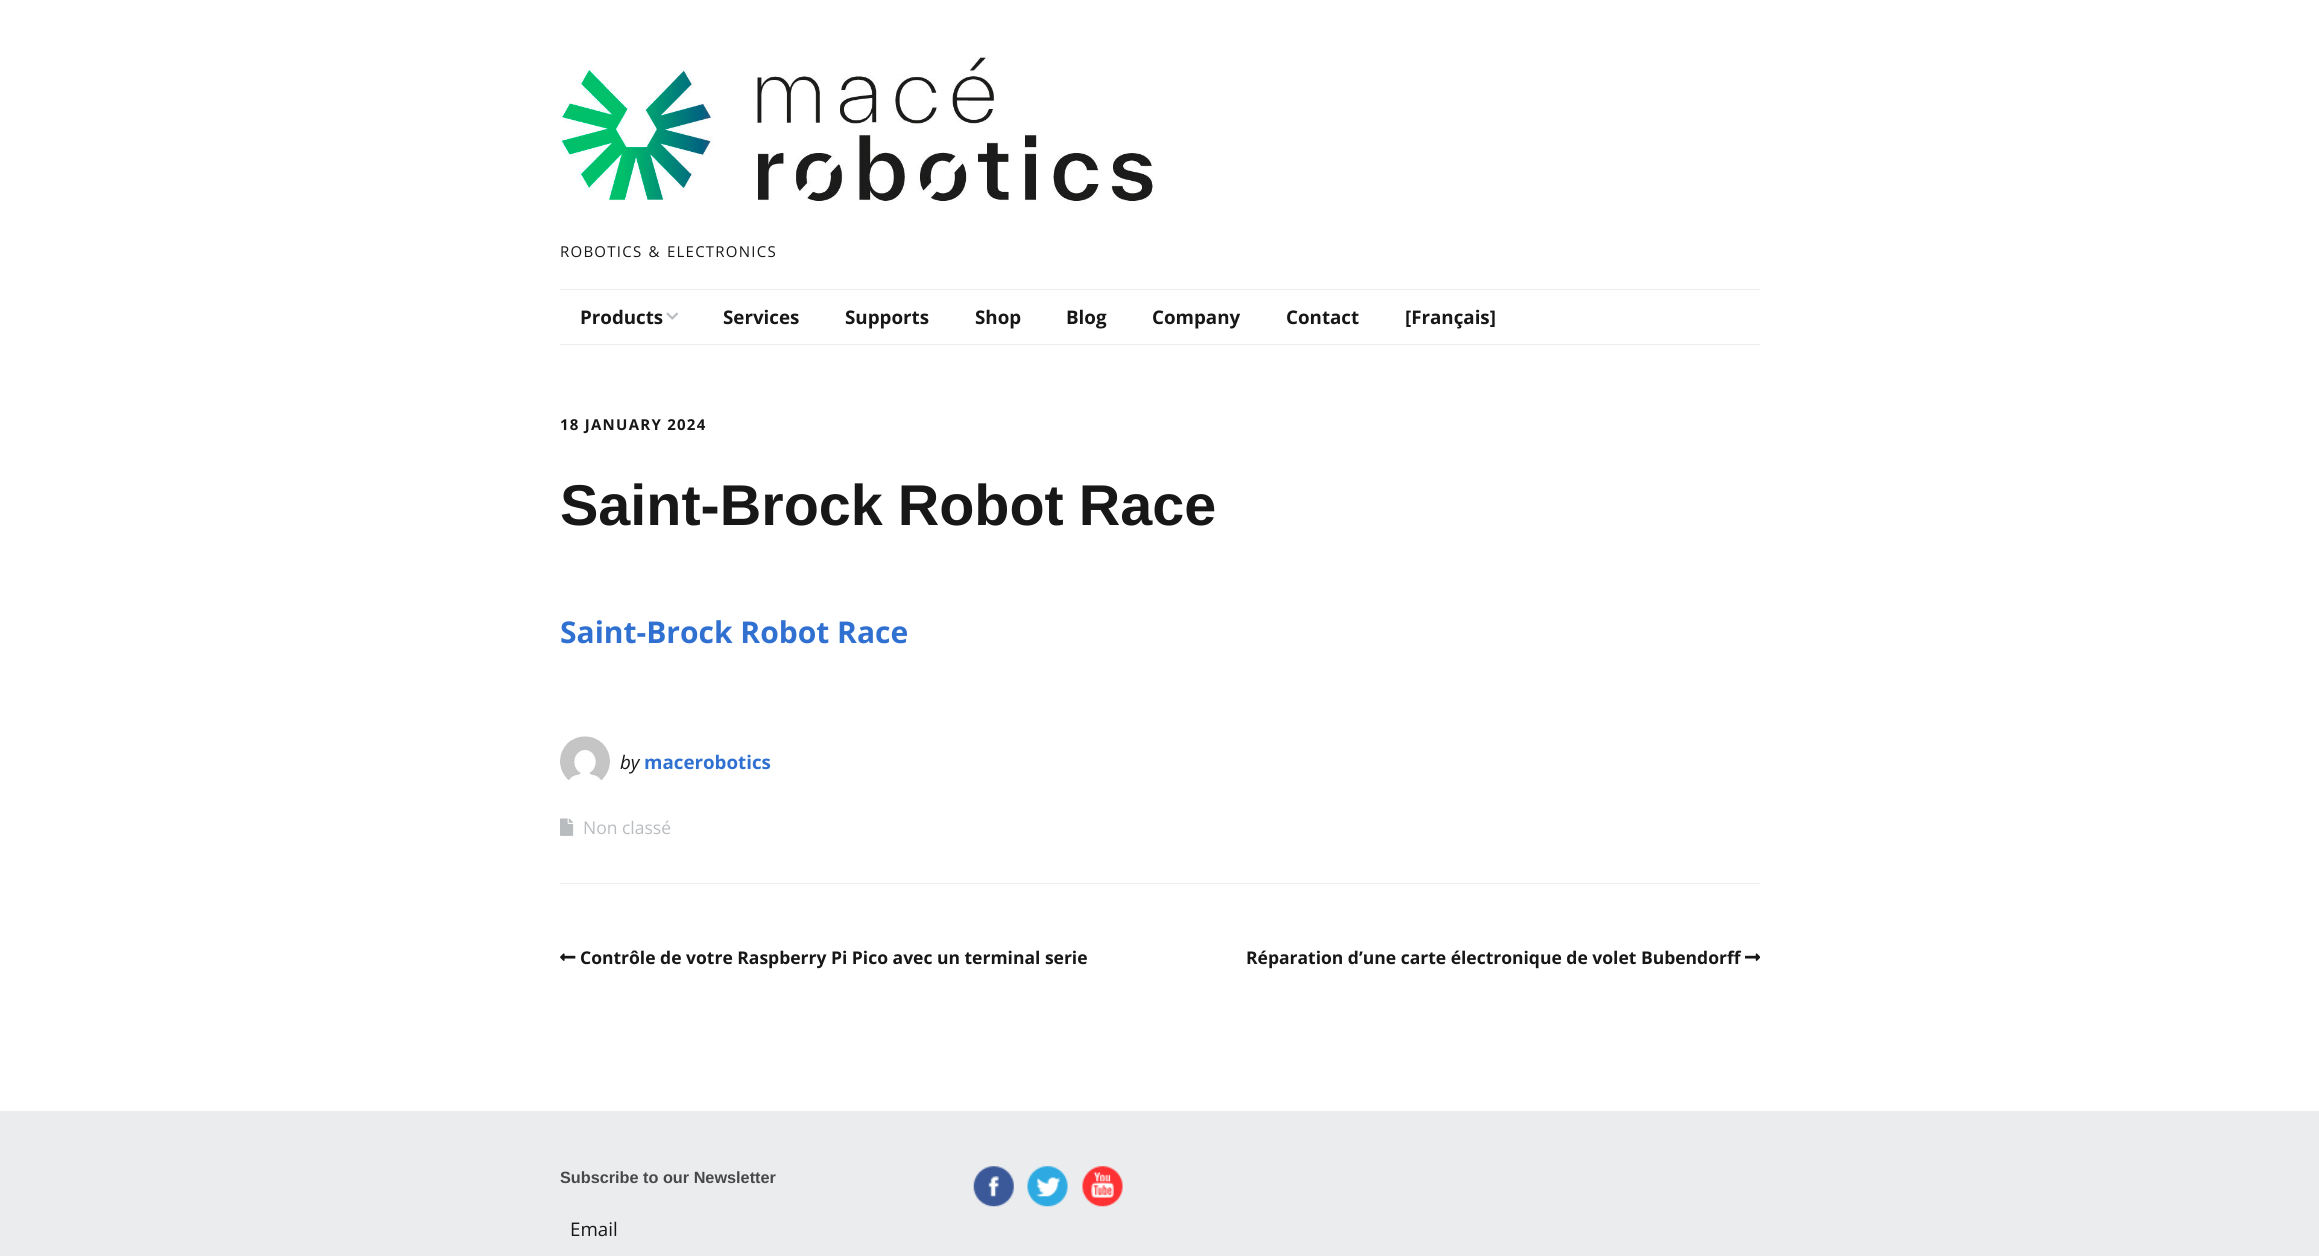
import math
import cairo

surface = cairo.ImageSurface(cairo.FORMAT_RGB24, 2319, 1256)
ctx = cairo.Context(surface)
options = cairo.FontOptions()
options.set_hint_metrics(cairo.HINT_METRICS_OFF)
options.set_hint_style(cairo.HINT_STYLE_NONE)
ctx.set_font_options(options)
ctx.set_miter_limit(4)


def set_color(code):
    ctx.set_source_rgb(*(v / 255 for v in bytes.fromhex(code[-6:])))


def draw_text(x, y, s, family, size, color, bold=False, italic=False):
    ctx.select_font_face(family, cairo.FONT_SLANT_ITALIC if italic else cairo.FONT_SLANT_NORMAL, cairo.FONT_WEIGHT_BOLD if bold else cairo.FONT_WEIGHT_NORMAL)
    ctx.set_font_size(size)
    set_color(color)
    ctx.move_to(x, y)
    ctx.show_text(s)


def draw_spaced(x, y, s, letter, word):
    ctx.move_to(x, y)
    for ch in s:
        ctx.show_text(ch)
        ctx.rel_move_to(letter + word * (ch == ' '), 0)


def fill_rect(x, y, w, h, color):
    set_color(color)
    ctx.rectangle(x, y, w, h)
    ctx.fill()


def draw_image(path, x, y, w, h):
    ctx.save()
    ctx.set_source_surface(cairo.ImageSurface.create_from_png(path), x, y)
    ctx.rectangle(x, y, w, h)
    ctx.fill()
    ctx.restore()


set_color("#ffffff")
ctx.paint()
draw_image("assets/img1.png", 560, 56, 593, 149)
ctx.select_font_face("Open Sans")
ctx.set_font_size(15)
set_color("#171717")
draw_spaced(560, 257, "ROBOTICS & ELECTRONICS", 1.25, 1)
fill_rect(560, 289, 1200, 1, "#eaecee")
fill_rect(560, 344, 1200, 1, "#eaecee")
draw_text(580, 324, "Products", "Open Sans", 18.75, "#171717", bold=True)
draw_image("assets/img2.png", 666, 312, 12, 8)
draw_text(723, 324, "Services", "Open Sans", 18.75, "#171717", bold=True)
draw_text(845, 324, "Supports", "Open Sans", 18.75, "#171717", bold=True)
draw_text(975, 324, "Shop", "Open Sans", 18.75, "#171717", bold=True)
draw_text(1066, 324, "Blog", "Open Sans", 18.75, "#171717", bold=True)
draw_text(1152, 324, "Company", "Open Sans", 18.75, "#171717", bold=True)
draw_text(1286, 324, "Contact", "Open Sans", 18.75, "#171717", bold=True)
draw_text(1405, 324, "[Français]", "Open Sans", 18.75, "#171717", bold=True)
fill_rect(560, 883, 1200, 1, "#eaecee")
ctx.set_font_size(15)
set_color("#171717")
draw_spaced(560, 430, "18 JANUARY 2024", 1.25, 0)
ctx.select_font_face("Liberation Sans", cairo.FONT_SLANT_NORMAL, cairo.FONT_WEIGHT_BOLD)
ctx.set_font_size(57.5)
draw_spaced(560, 525, "Saint-Brock Robot Race", 0, -1)
draw_text(560, 643, "Saint-Brock Robot Race", "Open Sans", 30, "#3070d1", bold=True)
draw_image("assets/img3.png", 560, 736, 50, 44)
draw_text(620, 769, "by", "Open Sans", 18.75, "#171717", italic=True)
draw_text(644, 769, "macerobotics", "Open Sans", 18.75, "#3070d1", bold=True)
draw_image("assets/img4.png", 560, 818, 14, 18)
draw_text(583, 834, "Non classé", "Open Sans", 17.5, "#b9bcbf")
draw_image("assets/img5.png", 560, 953, 16, 8)
draw_text(580, 964, "Contrôle de votre Raspberry Pi Pico avec un terminal serie", "Open Sans", 17.5, "#171717", bold=True)
draw_text(1246, 964, "Réparation d’une carte électronique de volet Bubendorff", "Open Sans", 17.5, "#171717", bold=True)
draw_image("assets/img6.png", 1745, 953, 15, 8)
fill_rect(0, 1111, 2319, 145, "#eaecee")
draw_text(560, 1183, "Subscribe to our Newsletter", "Liberation Sans", 16.25, "#464849", bold=True)
draw_text(570, 1236, "Email", "Open Sans", 18.75, "#171717")
draw_image("assets/img7.png", 973, 1166, 41, 41)
draw_image("assets/img8.png", 1027, 1166, 41, 41)
draw_image("assets/img9.png", 1082, 1166, 41, 41)
surface.write_to_png("output.png")
